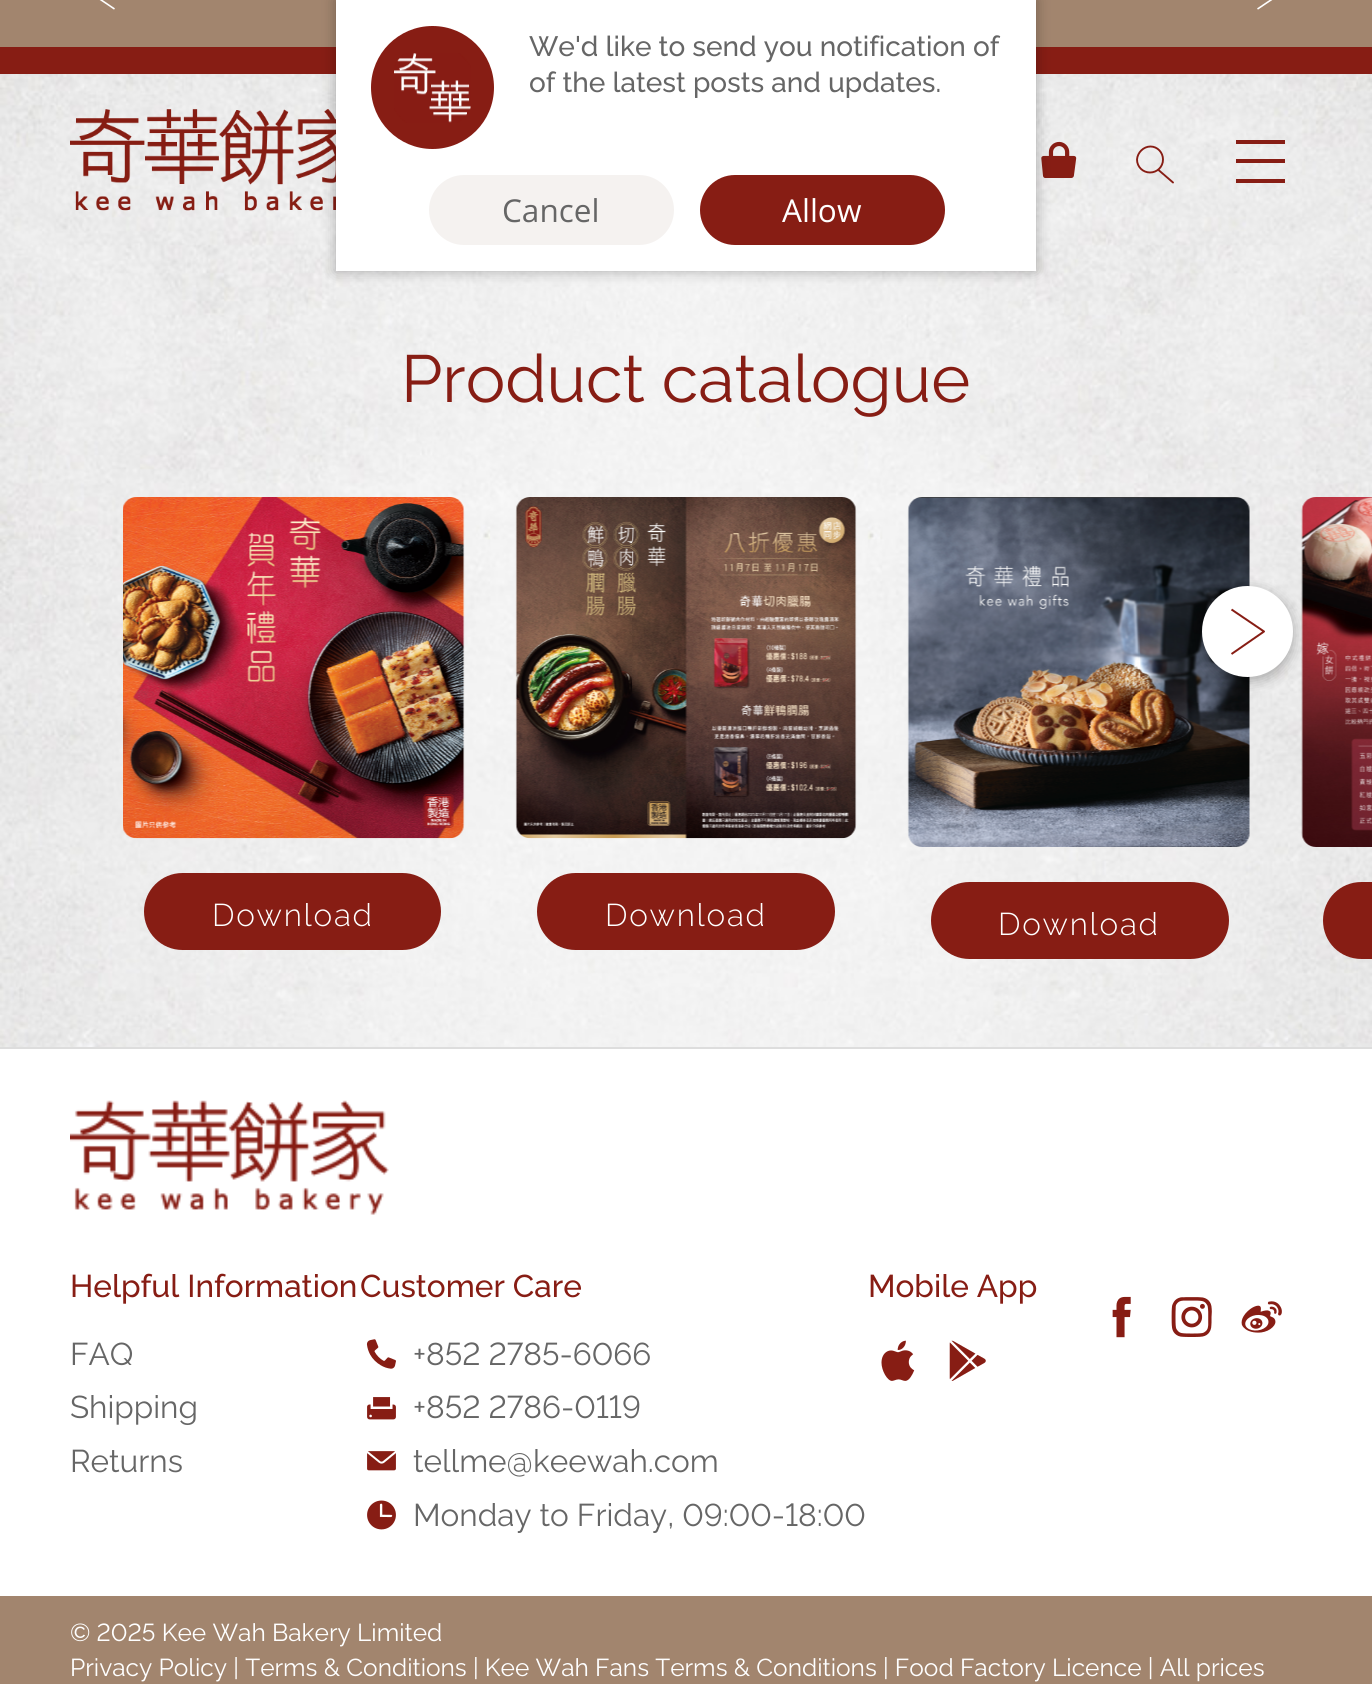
import math
import cairo

surface = cairo.ImageSurface(cairo.FORMAT_RGB24, 1372, 1684)
ctx = cairo.Context(surface)
options = cairo.FontOptions()
options.set_hint_metrics(cairo.HINT_METRICS_OFF)
options.set_hint_style(cairo.HINT_STYLE_NONE)
ctx.set_font_options(options)
ctx.set_miter_limit(4)


def set_color(code):
    ctx.set_source_rgb(*(v / 255 for v in bytes.fromhex(code[-6:])))


def draw_text(x, y, s, family, size, color, bold=False, italic=False):
    ctx.select_font_face(family, cairo.FONT_SLANT_ITALIC if italic else cairo.FONT_SLANT_NORMAL, cairo.FONT_WEIGHT_BOLD if bold else cairo.FONT_WEIGHT_NORMAL)
    ctx.set_font_size(size)
    set_color(color)
    ctx.move_to(x, y)
    ctx.show_text(s)


def draw_spaced(x, y, s, letter, word):
    ctx.move_to(x, y)
    for ch in s:
        ctx.show_text(ch)
        ctx.rel_move_to(letter + word * (ch == ' '), 0)


def fill_rect(x, y, w, h, color):
    set_color(color)
    ctx.rectangle(x, y, w, h)
    ctx.fill()


def rounded_rect(x, y, w, h, r):
    ctx.new_sub_path()
    for i, (u, v) in enumerate([(x + w - r, y + h - r), (x + r, y + h - r), (x + r, y + r), (x + w - r, y + r)]):
        ctx.arc(u, v, r, i * math.pi / 2, (i + 1) * math.pi / 2)
    ctx.close_path()


def draw_shadow(x, y, w, h, r, blur, alpha):
    ctx.push_group_with_content(cairo.CONTENT_ALPHA)
    ctx.set_operator(cairo.OPERATOR_SOURCE)
    for i in range(15, -16, -2):
        e = blur * i / 6
        if min(w, h) + 2 * e > 0:
            ctx.set_source_rgba(0, 0, 0, alpha * math.erfc((i - 1) / 8.5) / 2)
            rounded_rect(x - e, y - e, w + 2 * e, h + 2 * e, max(0, min(r + e + blur * .6, min(w, h) / 2 + e)))
            ctx.fill()
    ctx.mask(ctx.pop_group())


def draw_image(path, x, y, w, h):
    ctx.save()
    ctx.set_source_surface(cairo.ImageSurface.create_from_png(path), x, y)
    ctx.rectangle(x, y, w, h)
    ctx.fill()
    ctx.restore()


set_color("#ffffff")
ctx.paint()
draw_image("assets/img1.png", 0, 74, 1372, 973)
fill_rect(0, 0, 1372, 47, "#a2856e")
ctx.new_path()
ctx.move_to(114.5, -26.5)
ctx.line_to(88.5, -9)
ctx.line_to(88.5, -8.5)
ctx.line_to(114.5, 9)
set_color("#ffffff")
ctx.set_line_width(1.6)
ctx.set_line_join(cairo.LINE_JOIN_ROUND)
ctx.stroke()
ctx.new_path()
ctx.move_to(1257.5, -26.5)
ctx.line_to(1283.5, -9)
ctx.line_to(1283.5, -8.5)
ctx.line_to(1257.5, 9)
ctx.stroke()
fill_rect(0, 47, 1372, 27, "#871d14")
draw_image("assets/img3.png", 70, 109, 266, 102)
draw_image("assets/img4.png", 1041, 141, 36, 37)
set_color("#000000")
draw_shadow(336, 0, 700, 271, 0, 7, 0.3)
fill_rect(336, 0, 700, 271, "#ffffff")
set_color("#871d14")
ctx.arc(432.5, 87.5, 61.5, 0, 2 * math.pi)
ctx.fill()
draw_image("assets/img2.png", 394, 53, 77, 70)
draw_text(529, 56, "We'd like to send you notification of", "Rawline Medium", 28, "#666666")
draw_text(529, 92, "of the latest posts and updates.", "Rawline Medium", 28, "#666666")
set_color("#f5f2f0")
rounded_rect(429, 175, 245, 70, 35)
ctx.fill()
draw_text(502, 222, "Cancel", "Open Sans", 31.5, "#666666")
set_color("#871d14")
rounded_rect(700, 175, 245, 70, 35)
ctx.fill()
draw_text(782, 222, "Allow", "Open Sans", 31.5, "#ffffff")
ctx.new_path()
ctx.move_to(1163, 159.5)
ctx.curve_to(1163, 167, 1157, 172.5, 1150, 172.5)
ctx.curve_to(1143, 172.5, 1137, 167, 1137, 159.5)
ctx.curve_to(1137.5, 152.5, 1143.5, 146.5, 1150.5, 146.5)
ctx.curve_to(1157.5, 146.5, 1163, 152.5, 1163, 159.5)
ctx.close_path()
ctx.move_to(1158.5, 170)
ctx.line_to(1173, 182.5)
set_color("#871d14")
ctx.set_line_width(1.9)
ctx.set_line_cap(cairo.LINE_CAP_ROUND)
ctx.set_line_join(cairo.LINE_JOIN_MITER)
ctx.stroke()
fill_rect(1236, 140, 49, 4, "#871d14")
fill_rect(1236, 159, 49, 4, "#871d14")
fill_rect(1236, 179, 49, 4, "#871d14")
draw_text(401, 402, "Product catalogue", "Rawline", 66.5, "#871d14")
draw_image("assets/img7.png", 907, 497, 343, 350)
draw_image("assets/img8.png", 1301, 497, 71, 350)
set_color("#000000")
draw_shadow(1202, 590, 91, 91, 45.5, 7, 0.3)
set_color("#ffffff")
ctx.arc(1247.5, 631.5, 45.5, 0, 2 * math.pi)
ctx.fill()
ctx.new_path()
ctx.move_to(1231.5, 609.5)
ctx.line_to(1264, 631.5)
ctx.line_to(1231.5, 654)
set_color("#871d14")
ctx.set_line_width(2)
ctx.set_line_cap(cairo.LINE_CAP_BUTT)
ctx.set_line_join(cairo.LINE_JOIN_ROUND)
ctx.stroke()
draw_image("assets/img5.png", 123, 497, 342, 342)
rounded_rect(144, 873, 297, 77, 38.5)
ctx.fill()
ctx.select_font_face("Rawline Light")
ctx.set_font_size(31.5)
set_color("#ffffff")
draw_spaced(212, 926, "Download", 1.75, 0)
draw_image("assets/img6.png", 515, 497, 342, 342)
set_color("#871d14")
rounded_rect(537, 873, 298, 77, 38.5)
ctx.fill()
set_color("#ffffff")
draw_spaced(605, 926, "Download", 1.75, 0)
set_color("#871d14")
rounded_rect(931, 882, 298, 77, 38.5)
ctx.fill()
set_color("#ffffff")
draw_spaced(998, 935, "Download", 1.75, 0)
set_color("#871d14")
ctx.new_path()
ctx.move_to(1361.5, 882)
ctx.line_to(1372, 882)
ctx.line_to(1372, 959)
ctx.line_to(1361.5, 959)
ctx.curve_to(1340, 959, 1323, 942, 1323, 920.5)
ctx.curve_to(1323, 899, 1340, 882, 1361.5, 882)
ctx.close_path()
ctx.fill()
fill_rect(0, 1047, 1372, 2, "#dddddd")
draw_image("assets/img9.png", 70, 1100, 319, 115)
draw_text(70, 1297, "Helpful Information", "Rawline Medium", 31.5, "#871d14")
draw_text(70, 1365, "FAQ", "Rawline", 31.5, "#666666")
draw_text(70, 1418, "Shipping", "Rawline", 31.5, "#666666")
draw_text(70, 1472, "Returns", "Rawline", 31.5, "#666666")
draw_text(360, 1297, "Customer Care", "Rawline Medium", 31.5, "#871d14")
draw_image("assets/img10.png", 366, 1339, 30, 30)
draw_text(413, 1365, "+852 2785-6066", "Rawline", 31.5, "#666666")
draw_image("assets/img11.png", 367, 1397, 29, 23)
draw_text(413, 1418, "+852 2786-0119", "Rawline", 31.5, "#666666")
draw_image("assets/img12.png", 367, 1451, 29, 20)
draw_text(413, 1472, "tellme@keewah.com", "Rawline", 31.5, "#666666")
draw_image("assets/img13.png", 367, 1500, 29, 30)
draw_text(413, 1526, "Monday to Friday, 09:00-18:00", "Rawline", 31.5, "#666666")
draw_text(868, 1297, "Mobile App", "Rawline Medium", 31.5, "#871d14")
draw_image("assets/img14.png", 881, 1340, 34, 41)
draw_image("assets/img15.png", 949, 1340, 37, 41)
draw_image("assets/img16.png", 1112, 1296, 19, 42)
draw_image("assets/img17.png", 1171, 1297, 41, 40)
draw_image("assets/img18.png", 1241, 1301, 41, 32)
fill_rect(0, 1596, 1372, 88, "#a2856e")
draw_text(70, 1641, "© 2025 Kee Wah Bakery Limited", "Rawline", 24.5, "#ffffff")
draw_text(70, 1676, "Privacy Policy | Terms & Conditions | Kee Wah Fans Terms & Conditions | Food Factory Licence | All prices", "Rawline", 24.5, "#ffffff")
surface.write_to_png("output.png")
